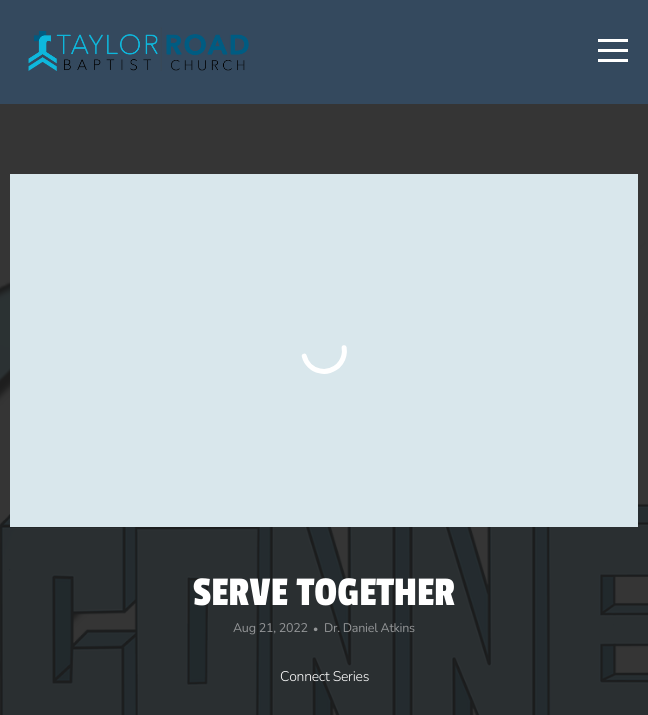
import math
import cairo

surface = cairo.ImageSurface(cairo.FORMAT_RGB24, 648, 715)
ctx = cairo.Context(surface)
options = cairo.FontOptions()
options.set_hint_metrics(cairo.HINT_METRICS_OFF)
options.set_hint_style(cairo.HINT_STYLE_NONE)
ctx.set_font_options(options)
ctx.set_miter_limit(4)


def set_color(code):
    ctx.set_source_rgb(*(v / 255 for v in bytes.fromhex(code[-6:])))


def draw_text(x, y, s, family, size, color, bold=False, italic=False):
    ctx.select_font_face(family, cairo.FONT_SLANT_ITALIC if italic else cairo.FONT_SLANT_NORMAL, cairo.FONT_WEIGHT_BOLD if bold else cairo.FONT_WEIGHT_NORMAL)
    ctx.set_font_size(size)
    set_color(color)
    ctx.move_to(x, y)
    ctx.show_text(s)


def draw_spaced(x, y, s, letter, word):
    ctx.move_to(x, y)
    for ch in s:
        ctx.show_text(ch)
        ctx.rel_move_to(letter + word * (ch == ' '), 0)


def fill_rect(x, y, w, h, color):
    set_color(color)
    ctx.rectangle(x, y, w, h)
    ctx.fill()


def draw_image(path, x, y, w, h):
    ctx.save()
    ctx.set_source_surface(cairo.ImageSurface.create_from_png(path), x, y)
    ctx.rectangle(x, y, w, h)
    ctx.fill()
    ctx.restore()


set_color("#34495e")
ctx.paint()
draw_image("assets/img1.png", 28, 27, 221, 44)
fill_rect(598, 39, 30, 3, "#ffffff")
fill_rect(598, 49, 30, 3, "#ffffff")
fill_rect(598, 59, 30, 3, "#ffffff")
draw_image("assets/img2.png", 0, 104, 648, 611)
draw_image("assets/img3.png", 10, 174, 628, 353)
draw_text(193, 605, "SERVE TOGETHER", "Passion One", 42.5, "#ffffff")
ctx.select_font_face("Nunito")
ctx.set_font_size(12.5)
set_color("#949698")
draw_spaced(233, 632, "Aug 21, 2022", -0.25, 0)
ctx.set_font_size(10)
draw_spaced(313, 632, "•", -0.25, 0)
ctx.set_font_size(12.5)
draw_spaced(324, 632, "Dr. Daniel Atkins", -0.25, 0)
ctx.select_font_face("Nunito Light")
ctx.set_font_size(14)
set_color("#ffffff")
draw_spaced(280, 681, "Connect Series", -0.25, 0)
surface.write_to_png("output.png")
